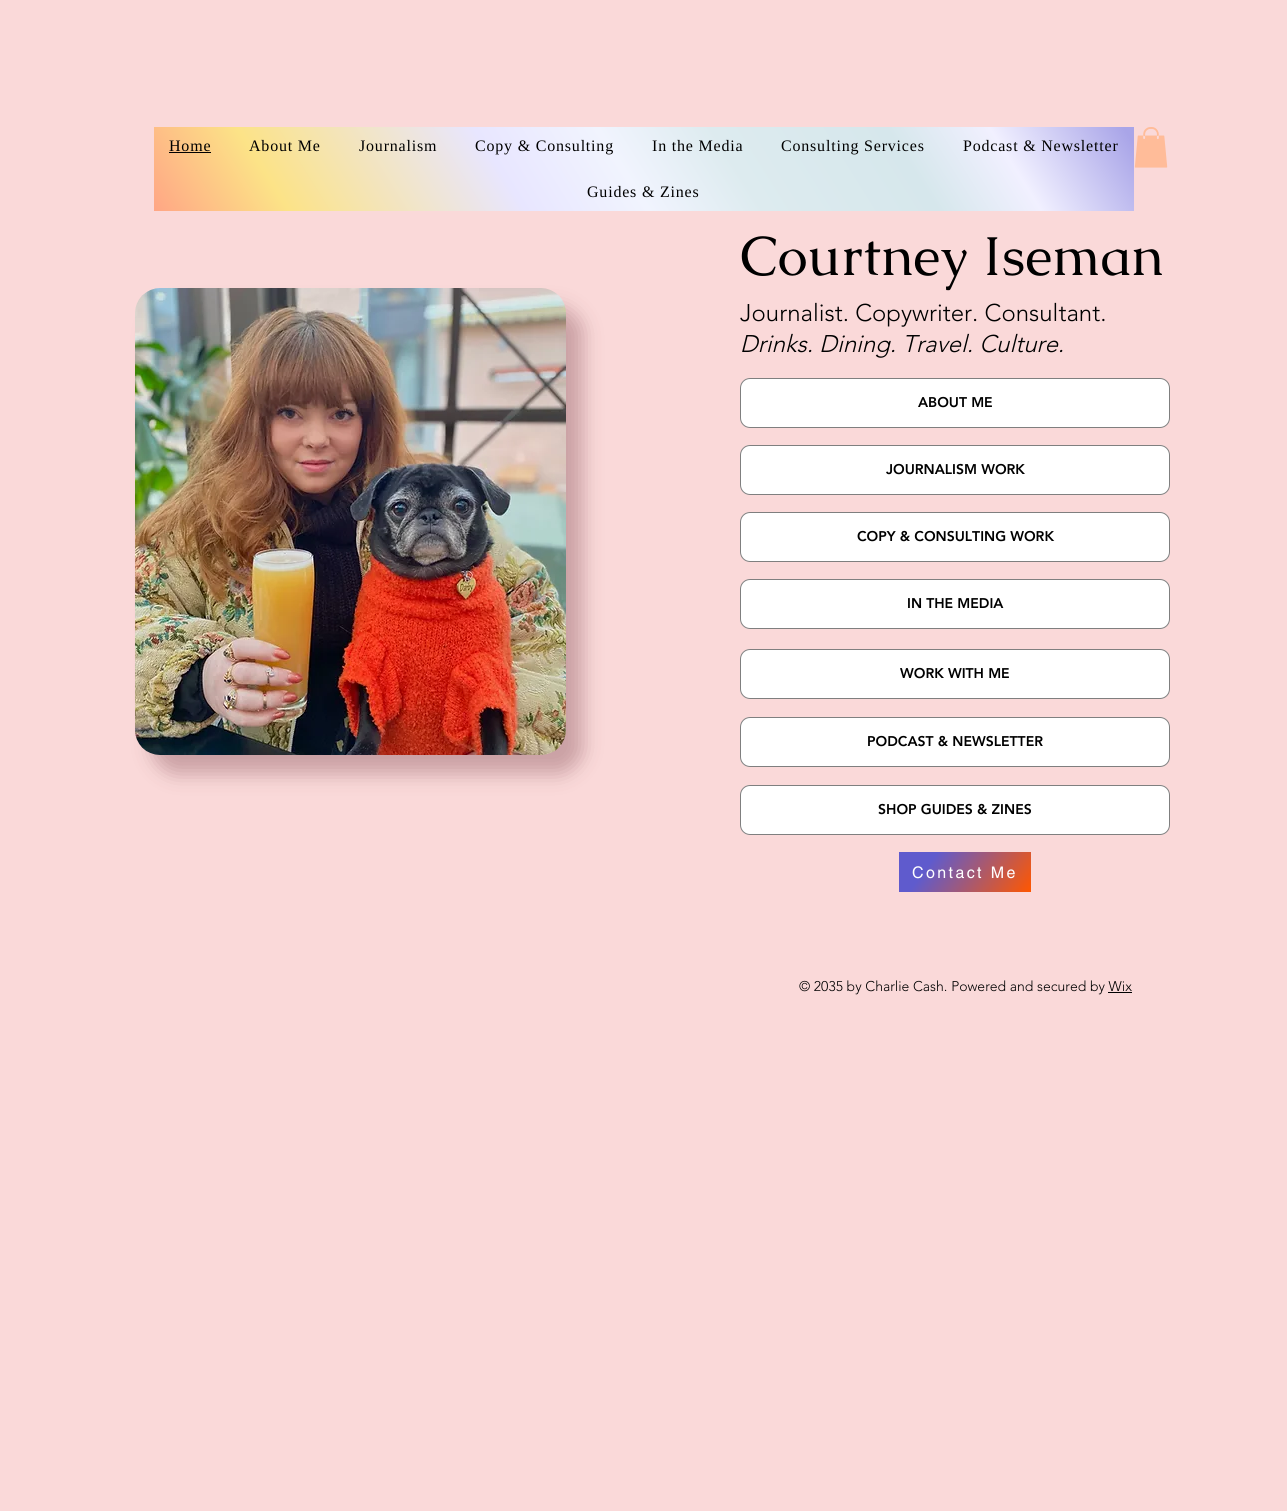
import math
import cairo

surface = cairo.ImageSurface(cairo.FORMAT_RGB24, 1287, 1511)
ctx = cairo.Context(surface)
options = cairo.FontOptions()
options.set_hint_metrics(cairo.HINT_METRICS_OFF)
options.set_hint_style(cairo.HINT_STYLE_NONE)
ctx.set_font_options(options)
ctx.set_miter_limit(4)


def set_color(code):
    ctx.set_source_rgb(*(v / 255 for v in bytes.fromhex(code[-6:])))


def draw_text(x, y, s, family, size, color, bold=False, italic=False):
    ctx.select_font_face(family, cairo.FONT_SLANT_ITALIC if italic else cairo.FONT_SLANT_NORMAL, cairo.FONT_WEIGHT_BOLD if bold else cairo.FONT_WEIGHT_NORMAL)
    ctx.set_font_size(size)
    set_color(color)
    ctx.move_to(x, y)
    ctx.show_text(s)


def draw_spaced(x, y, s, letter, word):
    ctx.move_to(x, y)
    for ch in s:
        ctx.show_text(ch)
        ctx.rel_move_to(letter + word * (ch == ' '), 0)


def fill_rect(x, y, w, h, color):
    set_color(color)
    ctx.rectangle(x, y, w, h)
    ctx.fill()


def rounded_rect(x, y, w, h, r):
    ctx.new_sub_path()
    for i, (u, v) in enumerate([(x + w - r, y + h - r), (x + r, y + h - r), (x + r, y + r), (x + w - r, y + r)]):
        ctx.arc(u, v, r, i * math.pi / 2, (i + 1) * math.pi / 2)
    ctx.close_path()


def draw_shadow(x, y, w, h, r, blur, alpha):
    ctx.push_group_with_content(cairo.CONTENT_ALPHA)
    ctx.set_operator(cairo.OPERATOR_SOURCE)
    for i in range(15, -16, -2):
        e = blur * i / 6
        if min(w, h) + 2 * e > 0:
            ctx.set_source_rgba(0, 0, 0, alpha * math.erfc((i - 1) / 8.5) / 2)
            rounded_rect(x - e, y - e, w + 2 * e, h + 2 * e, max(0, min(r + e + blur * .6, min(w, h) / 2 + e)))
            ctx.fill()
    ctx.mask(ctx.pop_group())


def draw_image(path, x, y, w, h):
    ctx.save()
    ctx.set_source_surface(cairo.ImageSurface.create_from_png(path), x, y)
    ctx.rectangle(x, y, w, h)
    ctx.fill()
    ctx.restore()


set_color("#fad9d9")
ctx.paint()
gradient = cairo.LinearGradient(273, 401, 1015, -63)
gradient.add_color_stop_rgba(0, 1, 0.651, 0.522, 1)
gradient.add_color_stop_rgba(0.13, 0.988, 0.89, 0.529, 1)
gradient.add_color_stop_rgba(0.36, 0.91, 0.902, 1, 1)
gradient.add_color_stop_rgba(0.48, 0.945, 0.957, 0.996, 1)
gradient.add_color_stop_rgba(0.59, 0.867, 0.922, 0.937, 1)
gradient.add_color_stop_rgba(0.76, 0.839, 0.906, 0.925, 1)
gradient.add_color_stop_rgba(0.86, 0.945, 0.941, 1, 1)
gradient.add_color_stop_rgba(0.99, 0.663, 0.647, 0.91, 1)
ctx.set_source(gradient)
ctx.rectangle(154, 127, 980, 84)
ctx.fill()
ctx.select_font_face("Liberation Serif")
ctx.set_font_size(16)
set_color("#000000")
draw_spaced(169, 151, "Home", 0.8, 0)
fill_rect(169, 152, 42, 1, "#000000")
draw_spaced(249, 151, "About Me", 0.8, 0)
draw_spaced(359, 151, "Journalism", 0.8, 0)
draw_spaced(475, 151, "Copy & Consulting", 0.8, 0)
draw_spaced(652, 151, "In the Media", 0.8, 0)
draw_spaced(781, 151, "Consulting Services", 0.8, 0)
draw_spaced(963, 151, "Podcast & Newsletter", 0.8, 0)
draw_spaced(587, 197, "Guides & Zines", 0.8, 0)
draw_image("assets/img1.png", 1134, 127, 34, 41)
set_color("#551622")
draw_shadow(152, 307, 431, 467, 25, 10, 0.29)
draw_image("assets/img2.png", 135, 288, 431, 467)
draw_text(740, 275, "Courtney Iseman", "Caudex", 55, "#000000")
draw_text(740, 321, "Journalist. Copywriter. Consultant.", "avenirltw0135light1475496 Light", 24, "#000000")
draw_text(740, 352, "Drinks. Dining. Travel. Culture.", "avenirltw0135light1475496 Light", 24, "#000000", italic=True)
set_color("#ffffff")
rounded_rect(740, 378, 430, 50, 10)
ctx.fill()
rounded_rect(740.5, 378.5, 429, 49, 9.5)
ctx.set_source_rgba(0, 0, 0, 0.5)
ctx.set_line_width(1)
ctx.stroke()
draw_text(918, 407, "ABOUT ME", "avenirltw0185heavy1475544 Black", 14, "#000000")
set_color("#ffffff")
rounded_rect(740, 445, 430, 50, 10)
ctx.fill()
rounded_rect(740.5, 445.5, 429, 49, 9.5)
ctx.set_source_rgba(0, 0, 0, 0.5)
ctx.stroke()
draw_text(886, 474, "JOURNALISM WORK", "avenirltw0185heavy1475544 Black", 14, "#000000")
set_color("#ffffff")
rounded_rect(740, 512, 430, 50, 10)
ctx.fill()
rounded_rect(740.5, 512.5, 429, 49, 9.5)
ctx.set_source_rgba(0, 0, 0, 0.5)
ctx.stroke()
draw_text(857, 541, "COPY & CONSULTING WORK", "avenirltw0185heavy1475544 Black", 14, "#000000")
set_color("#ffffff")
rounded_rect(740, 579, 430, 50, 10)
ctx.fill()
rounded_rect(740.5, 579.5, 429, 49, 9.5)
ctx.set_source_rgba(0, 0, 0, 0.5)
ctx.stroke()
draw_text(907, 608, "IN THE MEDIA", "avenirltw0185heavy1475544 Black", 14, "#000000")
set_color("#ffffff")
rounded_rect(740, 649, 430, 50, 10)
ctx.fill()
rounded_rect(740.5, 649.5, 429, 49, 9.5)
ctx.set_source_rgba(0, 0, 0, 0.5)
ctx.stroke()
draw_text(900, 678, "WORK WITH ME", "avenirltw0185heavy1475544 Black", 14, "#000000")
set_color("#ffffff")
rounded_rect(740, 717, 430, 50, 10)
ctx.fill()
rounded_rect(740.5, 717.5, 429, 49, 9.5)
ctx.set_source_rgba(0, 0, 0, 0.5)
ctx.stroke()
draw_text(867, 746, "PODCAST & NEWSLETTER", "avenirltw0185heavy1475544 Black", 14, "#000000")
set_color("#ffffff")
rounded_rect(740, 785, 430, 50, 10)
ctx.fill()
rounded_rect(740.5, 785.5, 429, 49, 9.5)
ctx.set_source_rgba(0, 0, 0, 0.5)
ctx.stroke()
draw_text(878, 814, "SHOP GUIDES & ZINES", "avenirltw0185heavy1475544 Black", 14, "#000000")
gradient = cairo.LinearGradient(912, 834, 1018, 910)
gradient.add_color_stop_rgba(0.24, 0.373, 0.357, 0.804, 1)
gradient.add_color_stop_rgba(1, 1, 0.341, 0, 1)
ctx.set_source(gradient)
ctx.rectangle(899, 852, 132, 40)
ctx.fill()
ctx.select_font_face("helvetica")
ctx.set_font_size(16)
set_color("#ffffff")
draw_spaced(912, 878, "Contact Me", 2.4, 0)
draw_text(799, 991, "© 2035 by Charlie Cash. Powered and secured by Wix", "avenirltw0135light1475496 Light", 14, "#000000")
fill_rect(1108, 992, 24, 1, "#000000")
surface.write_to_png("output.png")
